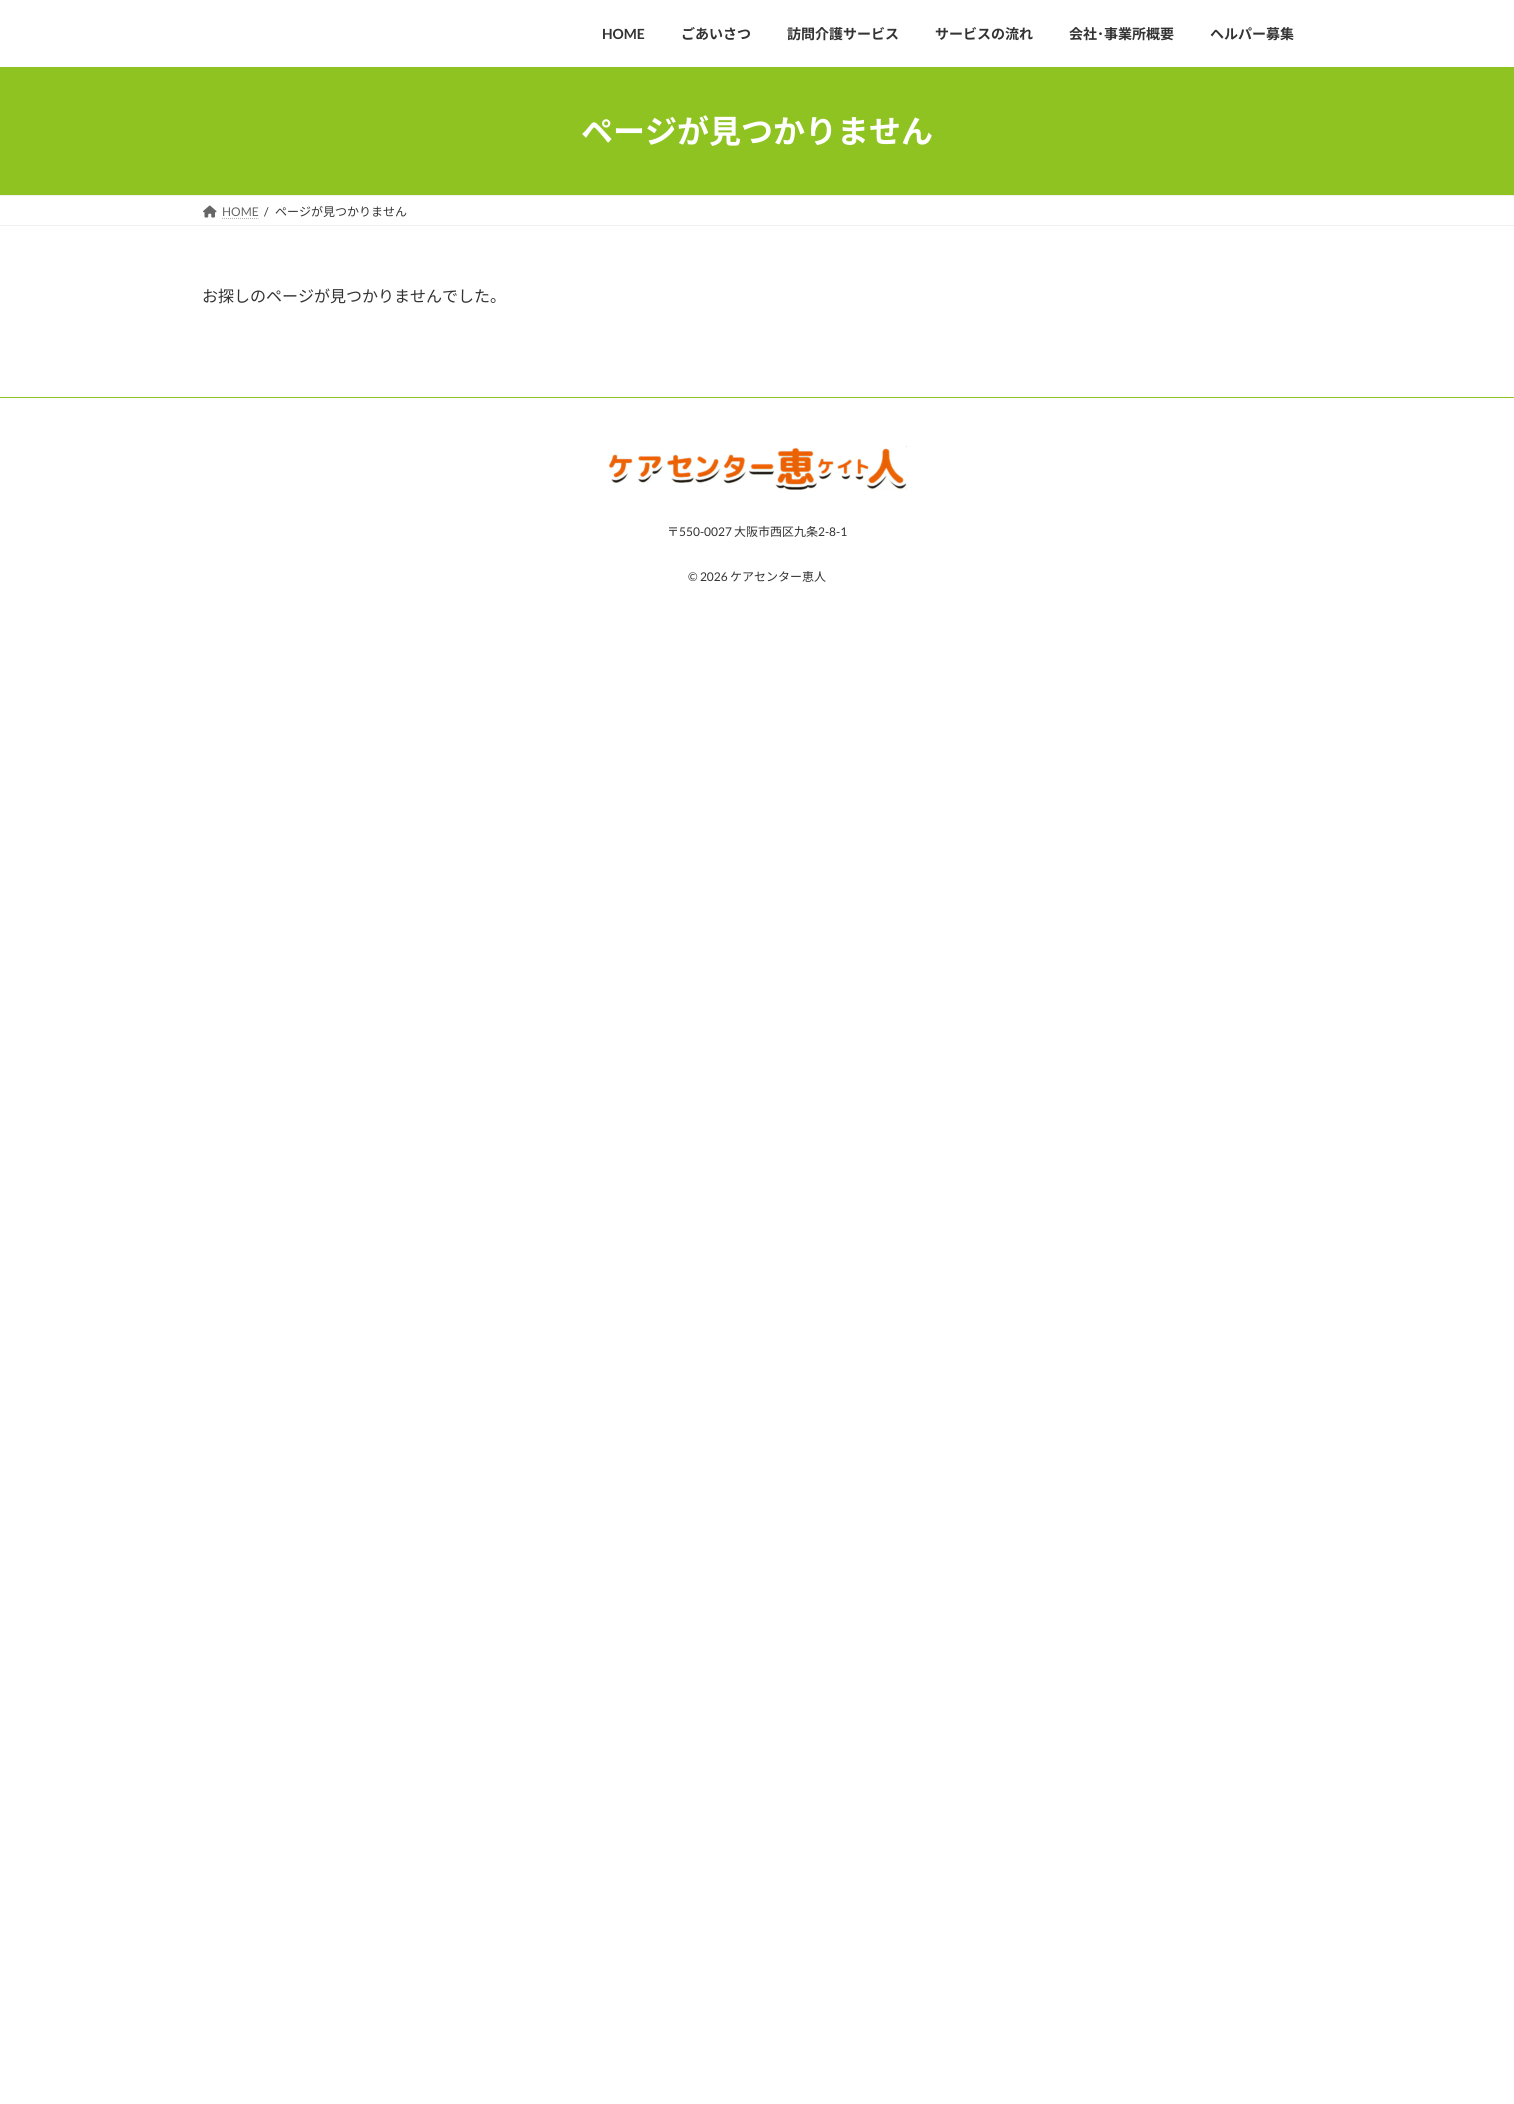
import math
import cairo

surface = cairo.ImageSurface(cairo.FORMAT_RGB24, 1514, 2104)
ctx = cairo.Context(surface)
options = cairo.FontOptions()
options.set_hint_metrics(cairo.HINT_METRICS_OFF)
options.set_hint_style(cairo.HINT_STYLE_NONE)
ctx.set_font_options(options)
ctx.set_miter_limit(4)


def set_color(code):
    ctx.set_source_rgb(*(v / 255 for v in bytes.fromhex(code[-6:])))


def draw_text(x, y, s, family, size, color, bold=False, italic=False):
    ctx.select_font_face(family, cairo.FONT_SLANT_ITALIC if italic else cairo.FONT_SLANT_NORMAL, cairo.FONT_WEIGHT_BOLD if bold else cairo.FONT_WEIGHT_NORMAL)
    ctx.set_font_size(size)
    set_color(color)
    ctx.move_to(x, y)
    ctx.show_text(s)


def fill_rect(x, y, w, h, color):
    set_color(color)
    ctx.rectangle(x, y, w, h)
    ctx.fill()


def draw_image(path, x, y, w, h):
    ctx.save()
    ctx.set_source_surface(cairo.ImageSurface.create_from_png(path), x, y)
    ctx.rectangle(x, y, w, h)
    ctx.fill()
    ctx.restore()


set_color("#ffffff")
ctx.paint()
draw_text(602, 39, "HOME", "Lato", 14, "#333333", bold=True)
draw_text(681, 39, "ごあいさつ", "Noto Sans JP", 14, "#333333", bold=True)
draw_text(787, 39, "訪問介護サービス", "Noto Sans JP", 14, "#333333", bold=True)
draw_text(935, 39, "サービスの流れ", "Noto Sans JP", 14, "#333333", bold=True)
draw_text(1069, 39, "会社･事業所概要", "Noto Sans JP", 14, "#333333", bold=True)
draw_text(1210, 39, "ヘルパー募集", "Noto Sans JP", 14, "#333333", bold=True)
fill_rect(0, 67, 1514, 128, "#8fc322")
draw_text(581, 143, "ページが見つかりません", "Noto Sans JP", 32, "#ffffff", bold=True)
fill_rect(0, 195, 1514, 1, "#f0f0f0")
fill_rect(0, 225, 1514, 1, "#f0f0f0")
draw_image("assets/img1.png", 203, 205, 14, 13)
draw_text(222, 216, "HOME", "Lato", 12, "#666666")
ctx.new_path()
ctx.move_to(222, 218.5)
ctx.line_to(258.5, 218.5)
set_color("#b3b3b3")
ctx.set_line_width(1)
ctx.set_dash([1, 1])
ctx.stroke()
draw_text(264, 216, "/", "Lato", 12, "#333333")
draw_text(275, 216, "ページが見つかりません", "Noto Sans JP", 12, "#333333")
draw_text(202, 302, "お探しのページが見つかりませんでした。", "Noto Sans JP", 16, "#333333")
fill_rect(0, 397, 1514, 1, "#8fc322")
draw_image("assets/img2.png", 608, 446, 299, 44)
draw_text(667, 536, "〒", "Noto Sans JP", 12, "#333333")
draw_text(679, 536, "550-0027", "Lato", 12, "#333333")
draw_text(734, 536, "大阪市西区九条", "Noto Sans JP", 12, "#333333")
draw_text(818, 536, "2-8-1", "Lato", 12, "#333333")
draw_text(688, 581, "© 2026", "Lato", 12, "#333333")
draw_text(730, 581, "ケアセンター恵人", "Noto Sans JP", 12, "#333333")
surface.write_to_png("output.png")
